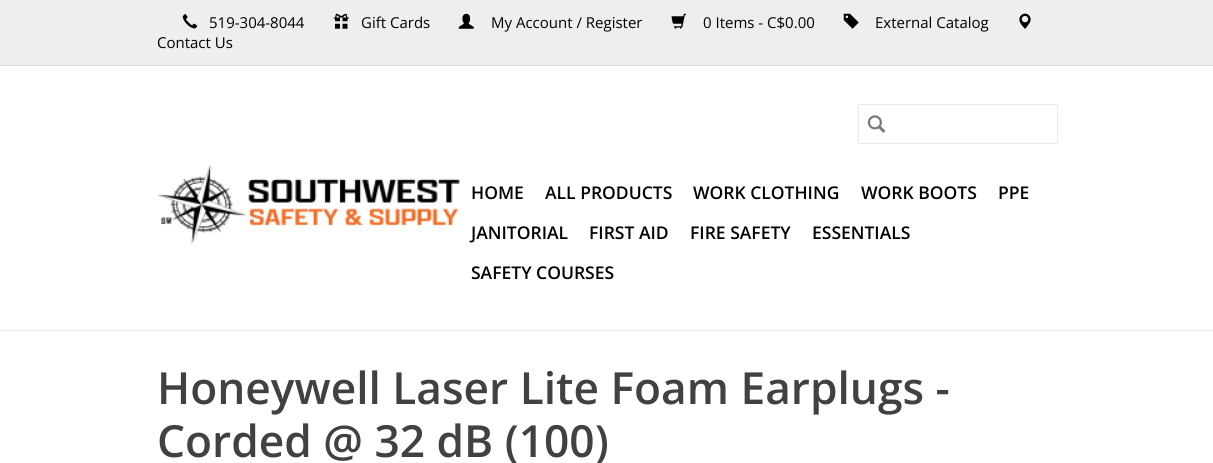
import math
import cairo

surface = cairo.ImageSurface(cairo.FORMAT_RGB24, 1213, 463)
ctx = cairo.Context(surface)
options = cairo.FontOptions()
options.set_hint_metrics(cairo.HINT_METRICS_OFF)
options.set_hint_style(cairo.HINT_STYLE_NONE)
ctx.set_font_options(options)
ctx.set_miter_limit(4)


def set_color(code):
    ctx.set_source_rgb(*(v / 255 for v in bytes.fromhex(code[-6:])))


def draw_text(x, y, s, family, size, color, bold=False, italic=False):
    ctx.select_font_face(family, cairo.FONT_SLANT_ITALIC if italic else cairo.FONT_SLANT_NORMAL, cairo.FONT_WEIGHT_BOLD if bold else cairo.FONT_WEIGHT_NORMAL)
    ctx.set_font_size(size)
    set_color(color)
    ctx.move_to(x, y)
    ctx.show_text(s)


def fill_rect(x, y, w, h, color):
    set_color(color)
    ctx.rectangle(x, y, w, h)
    ctx.fill()


def draw_image(path, x, y, w, h):
    ctx.save()
    ctx.set_source_surface(cairo.ImageSurface.create_from_png(path), x, y)
    ctx.rectangle(x, y, w, h)
    ctx.fill()
    ctx.restore()


set_color("#ffffff")
ctx.paint()
fill_rect(0, 330, 1213, 1, "#eaeaea")
fill_rect(0, 0, 1213, 65, "#eeeeee")
fill_rect(0, 65, 1213, 1, "#dddddd")
draw_image("assets/img1.png", 182, 14, 16, 15)
draw_text(209, 28, "519-304-8044", "Open Sans", 15, "#000000")
draw_image("assets/img2.png", 333, 13, 16, 16)
draw_text(361, 28, "Gift Cards", "Open Sans", 15, "#000000")
draw_image("assets/img3.png", 458, 13, 16, 16)
draw_text(491, 28, "My Account / Register", "Open Sans", 15, "#000000")
draw_image("assets/img4.png", 671, 13, 16, 16)
draw_text(703, 28, "0 Items - C$0.00", "Open Sans", 15, "#000000")
draw_image("assets/img5.png", 843, 13, 16, 16)
draw_text(875, 28, "External Catalog", "Open Sans", 15, "#000000")
draw_image("assets/img6.png", 1019, 13, 12, 16)
draw_text(157, 48, "Contact Us", "Open Sans", 15, "#000000")
draw_image("assets/img7.png", 158, 165, 303, 79)
ctx.rectangle(858.5, 104.5, 199, 39)
set_color("#eaeaea")
ctx.set_line_width(1)
ctx.stroke()
draw_image("assets/img8.png", 867, 115, 19, 18)
draw_text(471, 199, "HOME", "Open Sans SemiBold", 17.5, "#000000")
draw_text(545, 199, "ALL PRODUCTS", "Open Sans SemiBold", 17.5, "#000000")
draw_text(693, 199, "WORK CLOTHING", "Open Sans SemiBold", 17.5, "#000000")
draw_text(861, 199, "WORK BOOTS", "Open Sans SemiBold", 17.5, "#000000")
draw_text(998, 199, "PPE", "Open Sans SemiBold", 17.5, "#000000")
draw_text(471, 239, "JANITORIAL", "Open Sans SemiBold", 17.5, "#000000")
draw_text(589, 239, "FIRST AID", "Open Sans SemiBold", 17.5, "#000000")
draw_text(690, 239, "FIRE SAFETY", "Open Sans SemiBold", 17.5, "#000000")
draw_text(812, 239, "ESSENTIALS", "Open Sans SemiBold", 17.5, "#000000")
draw_text(471, 279, "SAFETY COURSES", "Open Sans SemiBold", 17.5, "#000000")
draw_text(157, 404, "Honeywell Laser Lite Foam Earplugs -", "Open Sans SemiBold", 44.25, "#414141")
draw_text(157, 457, "Corded @ 32 dB (100)", "Open Sans SemiBold", 44.25, "#414141")
surface.write_to_png("output.png")
